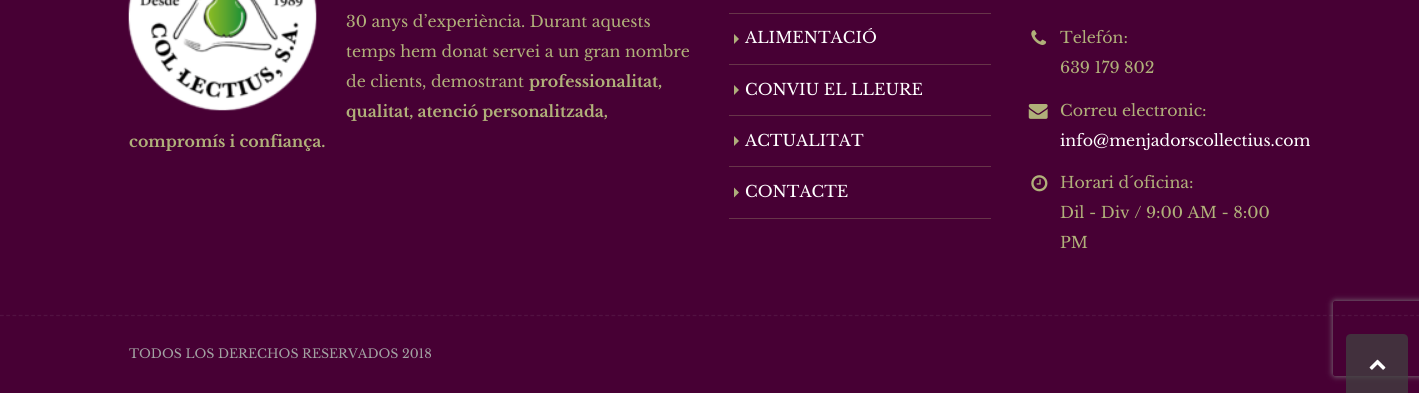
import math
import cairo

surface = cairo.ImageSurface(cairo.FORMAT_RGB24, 1419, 393)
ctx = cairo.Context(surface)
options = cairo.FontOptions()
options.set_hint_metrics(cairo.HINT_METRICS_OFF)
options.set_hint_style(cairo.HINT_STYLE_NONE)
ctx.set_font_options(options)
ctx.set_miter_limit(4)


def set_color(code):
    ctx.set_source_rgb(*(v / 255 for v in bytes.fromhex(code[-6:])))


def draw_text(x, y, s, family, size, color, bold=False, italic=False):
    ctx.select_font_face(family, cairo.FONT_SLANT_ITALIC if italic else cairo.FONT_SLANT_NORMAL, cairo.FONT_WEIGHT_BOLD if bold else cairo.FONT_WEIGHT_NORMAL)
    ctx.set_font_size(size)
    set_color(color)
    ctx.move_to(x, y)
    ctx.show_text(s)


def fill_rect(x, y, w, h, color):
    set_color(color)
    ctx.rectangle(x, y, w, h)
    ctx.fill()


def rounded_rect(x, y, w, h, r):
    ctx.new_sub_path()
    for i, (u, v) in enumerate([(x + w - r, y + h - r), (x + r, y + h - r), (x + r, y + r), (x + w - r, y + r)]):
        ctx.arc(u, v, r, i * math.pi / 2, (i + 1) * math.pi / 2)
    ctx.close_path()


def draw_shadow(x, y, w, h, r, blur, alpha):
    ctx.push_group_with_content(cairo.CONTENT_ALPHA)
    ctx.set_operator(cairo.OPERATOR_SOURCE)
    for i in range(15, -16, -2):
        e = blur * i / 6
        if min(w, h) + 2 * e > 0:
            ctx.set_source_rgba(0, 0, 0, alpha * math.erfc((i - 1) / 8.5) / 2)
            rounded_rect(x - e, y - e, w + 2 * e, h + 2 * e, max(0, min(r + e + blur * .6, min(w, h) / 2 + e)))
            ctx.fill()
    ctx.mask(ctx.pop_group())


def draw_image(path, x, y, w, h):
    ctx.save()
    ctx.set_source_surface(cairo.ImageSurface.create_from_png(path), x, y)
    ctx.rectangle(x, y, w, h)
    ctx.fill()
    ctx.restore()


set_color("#470034")
ctx.paint()
draw_image("assets/img1.png", 128, 0, 189, 111)
draw_text(346, 27, "30 anys d’experiència. Durant aquests", "Libre Baskerville", 15.75, "#b0b079")
draw_text(346, 57, "temps hem donat servei a un gran nombre", "Libre Baskerville", 15.75, "#b0b079")
draw_text(346, 87, "de clients, demostrant", "Libre Baskerville", 15.75, "#b0b079")
draw_text(529, 87, "professionalitat,", "Libre Baskerville", 15.75, "#b0b079", bold=True)
draw_text(346, 117, "qualitat, atenció personalitzada,", "Libre Baskerville", 15.75, "#b0b079", bold=True)
draw_text(129, 147, "compromís i confiança.", "Libre Baskerville", 15.75, "#b0b079", bold=True)
fill_rect(729, 218, 262, 1, "#673549")
fill_rect(729, 13, 262, 1, "#673549")
set_color("#aeae7b")
ctx.new_path()
ctx.move_to(734, 44)
ctx.line_to(734, 34)
ctx.line_to(739, 39)
ctx.close_path()
ctx.fill()
draw_text(745, 43, "ALIMENTACIÓ", "Libre Baskerville", 15.75, "#ffffff")
fill_rect(729, 64, 262, 1, "#673549")
set_color("#aeae7b")
ctx.new_path()
ctx.move_to(734, 95)
ctx.line_to(734, 85)
ctx.line_to(739, 90)
ctx.close_path()
ctx.fill()
draw_text(745, 95, "CONVIU EL LLEURE", "Libre Baskerville", 15.75, "#ffffff")
fill_rect(729, 115, 262, 1, "#673549")
set_color("#aeae7b")
ctx.new_path()
ctx.move_to(734, 146)
ctx.line_to(734, 136)
ctx.line_to(739, 141)
ctx.close_path()
ctx.fill()
draw_text(745, 146, "ACTUALITAT", "Libre Baskerville", 15.75, "#ffffff")
fill_rect(729, 166, 262, 1, "#673549")
set_color("#aeae7b")
ctx.new_path()
ctx.move_to(734, 197.5)
ctx.line_to(734, 187.5)
ctx.line_to(739, 192.5)
ctx.close_path()
ctx.fill()
draw_text(745, 197, "CONTACTE", "Libre Baskerville", 15.75, "#ffffff")
draw_image("assets/img2.png", 1031, 30, 16, 15)
draw_text(1060, 43, "Telefón:", "Libre Baskerville", 15.75, "#b0b079")
draw_text(1060, 73, "639 179 802", "Libre Baskerville", 15.75, "#b0b079")
draw_image("assets/img3.png", 1028, 104, 20, 15)
draw_text(1060, 116, "Correu electronic:", "Libre Baskerville", 15.75, "#b0b079")
draw_text(1060, 146, "info@menjadorscollectius.com", "Libre Baskerville", 15.75, "#ffffff")
draw_image("assets/img4.png", 1031, 175, 17, 17)
draw_text(1060, 188, "Horari d´oficina:", "Libre Baskerville", 15.75, "#b0b079")
draw_text(1060, 218, "Dil - Div / 9:00 AM - 8:00", "Libre Baskerville", 15.75, "#b0b079")
draw_text(1060, 248, "PM", "Libre Baskerville", 15.75, "#b0b079")
ctx.new_path()
ctx.move_to(0, 315.5)
ctx.line_to(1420, 315.5)
set_color("#521241")
ctx.set_line_width(1.2)
ctx.set_dash([3.75, 2.49])
ctx.stroke()
draw_text(129, 358, "TODOS LOS DERECHOS RESERVADOS 2018", "Libre Baskerville", 12.5, "#a2a2a2")
ctx.save()
ctx.set_fill_rule(cairo.FILL_RULE_EVEN_ODD)
ctx.new_path()
ctx.move_to(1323, 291)
ctx.line_to(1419, 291)
ctx.line_to(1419, 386)
ctx.line_to(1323, 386)
ctx.close_path()
ctx.move_to(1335.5, 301)
ctx.line_to(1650.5, 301)
ctx.curve_to(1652, 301, 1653, 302, 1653, 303.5)
ctx.line_to(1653, 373.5)
ctx.curve_to(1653, 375, 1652, 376, 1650.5, 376)
ctx.line_to(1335.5, 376)
ctx.curve_to(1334, 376, 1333, 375, 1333, 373.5)
ctx.line_to(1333, 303.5)
ctx.curve_to(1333, 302, 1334, 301, 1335.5, 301)
ctx.close_path()
ctx.clip()
set_color("#808080")
draw_shadow(1333, 301, 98, 75, 2.5, 3, 1)
ctx.restore()
ctx.set_source_rgba(0.251, 0.251, 0.251, 0.75)
ctx.new_path()
ctx.move_to(1351, 334)
ctx.line_to(1403, 334)
ctx.curve_to(1406, 334, 1408, 336, 1408, 339)
ctx.line_to(1408, 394)
ctx.line_to(1346, 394)
ctx.line_to(1346, 339)
ctx.curve_to(1346, 336, 1348, 334, 1351, 334)
ctx.close_path()
ctx.fill()
draw_image("assets/img5.png", 1369, 359, 17, 11)
surface.write_to_png("output.png")
